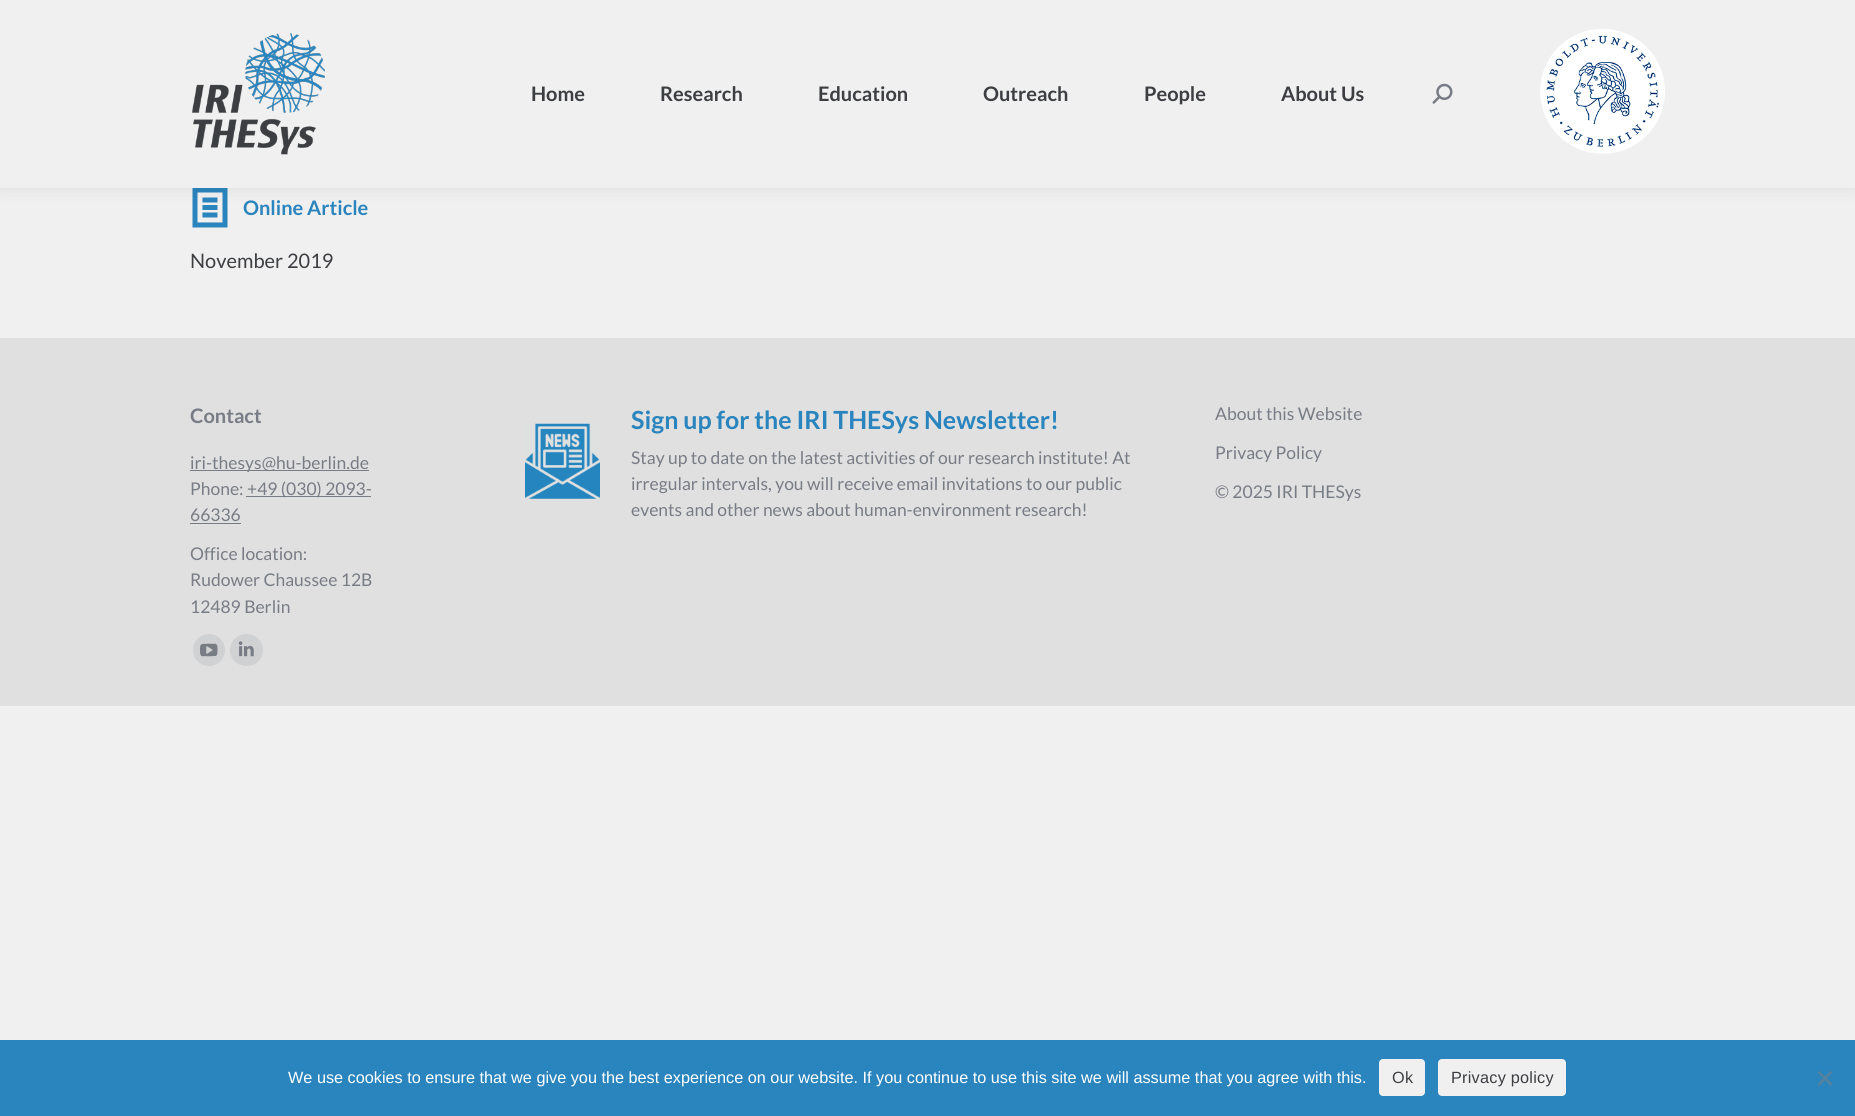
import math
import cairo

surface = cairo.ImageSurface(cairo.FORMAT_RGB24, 1855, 1116)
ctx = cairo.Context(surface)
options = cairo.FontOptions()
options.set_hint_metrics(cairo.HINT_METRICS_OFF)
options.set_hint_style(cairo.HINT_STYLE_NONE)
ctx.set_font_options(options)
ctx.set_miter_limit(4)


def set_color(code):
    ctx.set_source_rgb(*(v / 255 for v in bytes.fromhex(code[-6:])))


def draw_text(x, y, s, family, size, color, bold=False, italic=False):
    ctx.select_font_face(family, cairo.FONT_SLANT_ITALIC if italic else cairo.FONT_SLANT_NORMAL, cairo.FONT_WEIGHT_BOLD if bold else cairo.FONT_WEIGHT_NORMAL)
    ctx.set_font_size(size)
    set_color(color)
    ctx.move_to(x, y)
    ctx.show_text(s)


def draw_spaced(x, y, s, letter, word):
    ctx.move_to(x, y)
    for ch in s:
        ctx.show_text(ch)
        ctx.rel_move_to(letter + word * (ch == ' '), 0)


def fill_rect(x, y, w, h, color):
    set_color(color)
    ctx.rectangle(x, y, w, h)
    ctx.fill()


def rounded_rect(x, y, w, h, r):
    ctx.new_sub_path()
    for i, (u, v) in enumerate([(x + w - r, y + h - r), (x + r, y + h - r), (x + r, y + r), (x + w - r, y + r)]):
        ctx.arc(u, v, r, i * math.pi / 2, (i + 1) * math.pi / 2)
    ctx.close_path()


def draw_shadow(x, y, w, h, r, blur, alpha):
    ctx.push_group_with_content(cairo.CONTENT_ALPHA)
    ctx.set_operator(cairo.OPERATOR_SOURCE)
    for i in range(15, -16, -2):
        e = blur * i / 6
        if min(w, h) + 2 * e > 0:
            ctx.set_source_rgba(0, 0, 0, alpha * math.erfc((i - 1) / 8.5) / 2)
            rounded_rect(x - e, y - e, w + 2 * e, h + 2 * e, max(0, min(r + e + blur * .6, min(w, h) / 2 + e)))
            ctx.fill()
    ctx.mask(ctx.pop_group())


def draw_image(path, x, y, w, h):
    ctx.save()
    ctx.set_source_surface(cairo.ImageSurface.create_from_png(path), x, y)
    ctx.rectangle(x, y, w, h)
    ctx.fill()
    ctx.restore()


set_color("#f0f0f0")
ctx.paint()
draw_image("assets/img4.png", 192, 188, 36, 40)
set_color("#000000")
draw_shadow(-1, -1, 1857, 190, 0, 9.5, 0.07)
fill_rect(0, 0, 1855, 188, "#f0f0f0")
draw_image("assets/img1.png", 192, 33, 133, 122)
draw_text(531, 101, "Home", "Lato", 20, "#3c3e42", bold=True)
draw_text(660, 101, "Research", "Lato", 20, "#3c3e42", bold=True)
draw_text(818, 101, "Education", "Lato", 20, "#3c3e42", bold=True)
draw_text(983, 101, "Outreach", "Lato", 20, "#3c3e42", bold=True)
draw_text(1144, 101, "People", "Lato", 20, "#3c3e42", bold=True)
draw_text(1281, 101, "About Us", "Lato", 20, "#3c3e42", bold=True)
draw_image("assets/img2.png", 1432, 83, 21, 21)
draw_image("assets/img3.png", 1540, 29, 125, 125)
draw_text(243, 215, "Online Article", "Lato", 20, "#2a84bd", bold=True)
draw_text(190, 268, "November 2019", "Lato", 20, "#3c3e42")
fill_rect(0, 338, 1855, 368, "#e0e0e0")
draw_text(190, 423, "Contact", "Lato", 20, "#787c84", bold=True)
fill_rect(190, 470, 179, 1, "#787c84")
draw_text(190, 469, "iri-thesys@hu-berlin.de", "Lato", 17.5, "#787c84")
draw_text(190, 495, "Phone:", "Lato", 17.5, "#787c84")
fill_rect(246, 496, 125, 1, "#787c84")
draw_text(247, 495, "+49 (030) 2093-", "Lato", 17.5, "#787c84")
draw_text(190, 521, "66336", "Lato", 17.5, "#787c84")
fill_rect(190, 523, 51, 1, "#787c84")
draw_text(190, 560, "Office location:", "Lato", 17.5, "#787c84")
draw_text(190, 586, "Rudower Chaussee 12B", "Lato", 17.5, "#787c84")
draw_text(190, 613, "12489 Berlin", "Lato", 17.5, "#787c84")
set_color("#d0d1d2")
ctx.new_path()
ctx.arc(209, 650, 16, 0, 2 * math.pi)
ctx.fill()
draw_image("assets/img5.png", 200, 643, 18, 14)
rounded_rect(230, 634, 33, 32, 16)
ctx.fill()
draw_image("assets/img6.png", 238, 641, 16, 16)
draw_image("assets/img7.png", 525, 423, 75, 76)
draw_text(631, 429, "Sign up for the IRI THESys Newsletter!", "Lato", 25, "#2a84bd", bold=True)
draw_text(631, 464, "Stay up to date on the latest activities of our research institute! At", "Lato", 17.5, "#787c84")
draw_text(631, 490, "irregular intervals, you will receive email invitations to our public", "Lato", 17.5, "#787c84")
draw_text(631, 516, "events and other news about human-environment research!", "Lato", 17.5, "#787c84")
draw_text(1215, 420, "About this Website", "Lato", 17.5, "#787c84")
draw_text(1215, 459, "Privacy Policy", "Lato", 17.5, "#787c84")
draw_text(1215, 498, "© 2025 IRI THESys", "Lato", 17.5, "#787c84")
fill_rect(0, 1040, 1855, 76, "#2a84bd")
draw_text(288, 1083, "We use cookies to ensure that we give you the best experience on our website. If you continue to use this site we will assume that you agree with this.", "Liberation Sans", 16.25, "#ffffff")
set_color("#f0f0f0")
rounded_rect(1379, 1059, 46, 37, 4)
ctx.fill()
set_color("#3c3e42")
draw_spaced(1392, 1083, "Ok", 0.25, 0)
set_color("#f0f0f0")
rounded_rect(1438, 1059, 128, 37, 4)
ctx.fill()
set_color("#3c3e42")
draw_spaced(1451, 1083, "Privacy policy", 0.25, 0)
set_color("#55829f")
ctx.new_path()
ctx.move_to(1830.5, 1071)
ctx.line_to(1832.5, 1072.5)
ctx.line_to(1819.5, 1086)
ctx.line_to(1817.5, 1084)
ctx.close_path()
ctx.fill()
ctx.new_path()
ctx.move_to(1817.5, 1072.5)
ctx.line_to(1819.5, 1071)
ctx.line_to(1832.5, 1084)
ctx.line_to(1830.5, 1086)
ctx.close_path()
ctx.fill()
surface.write_to_png("output.png")
